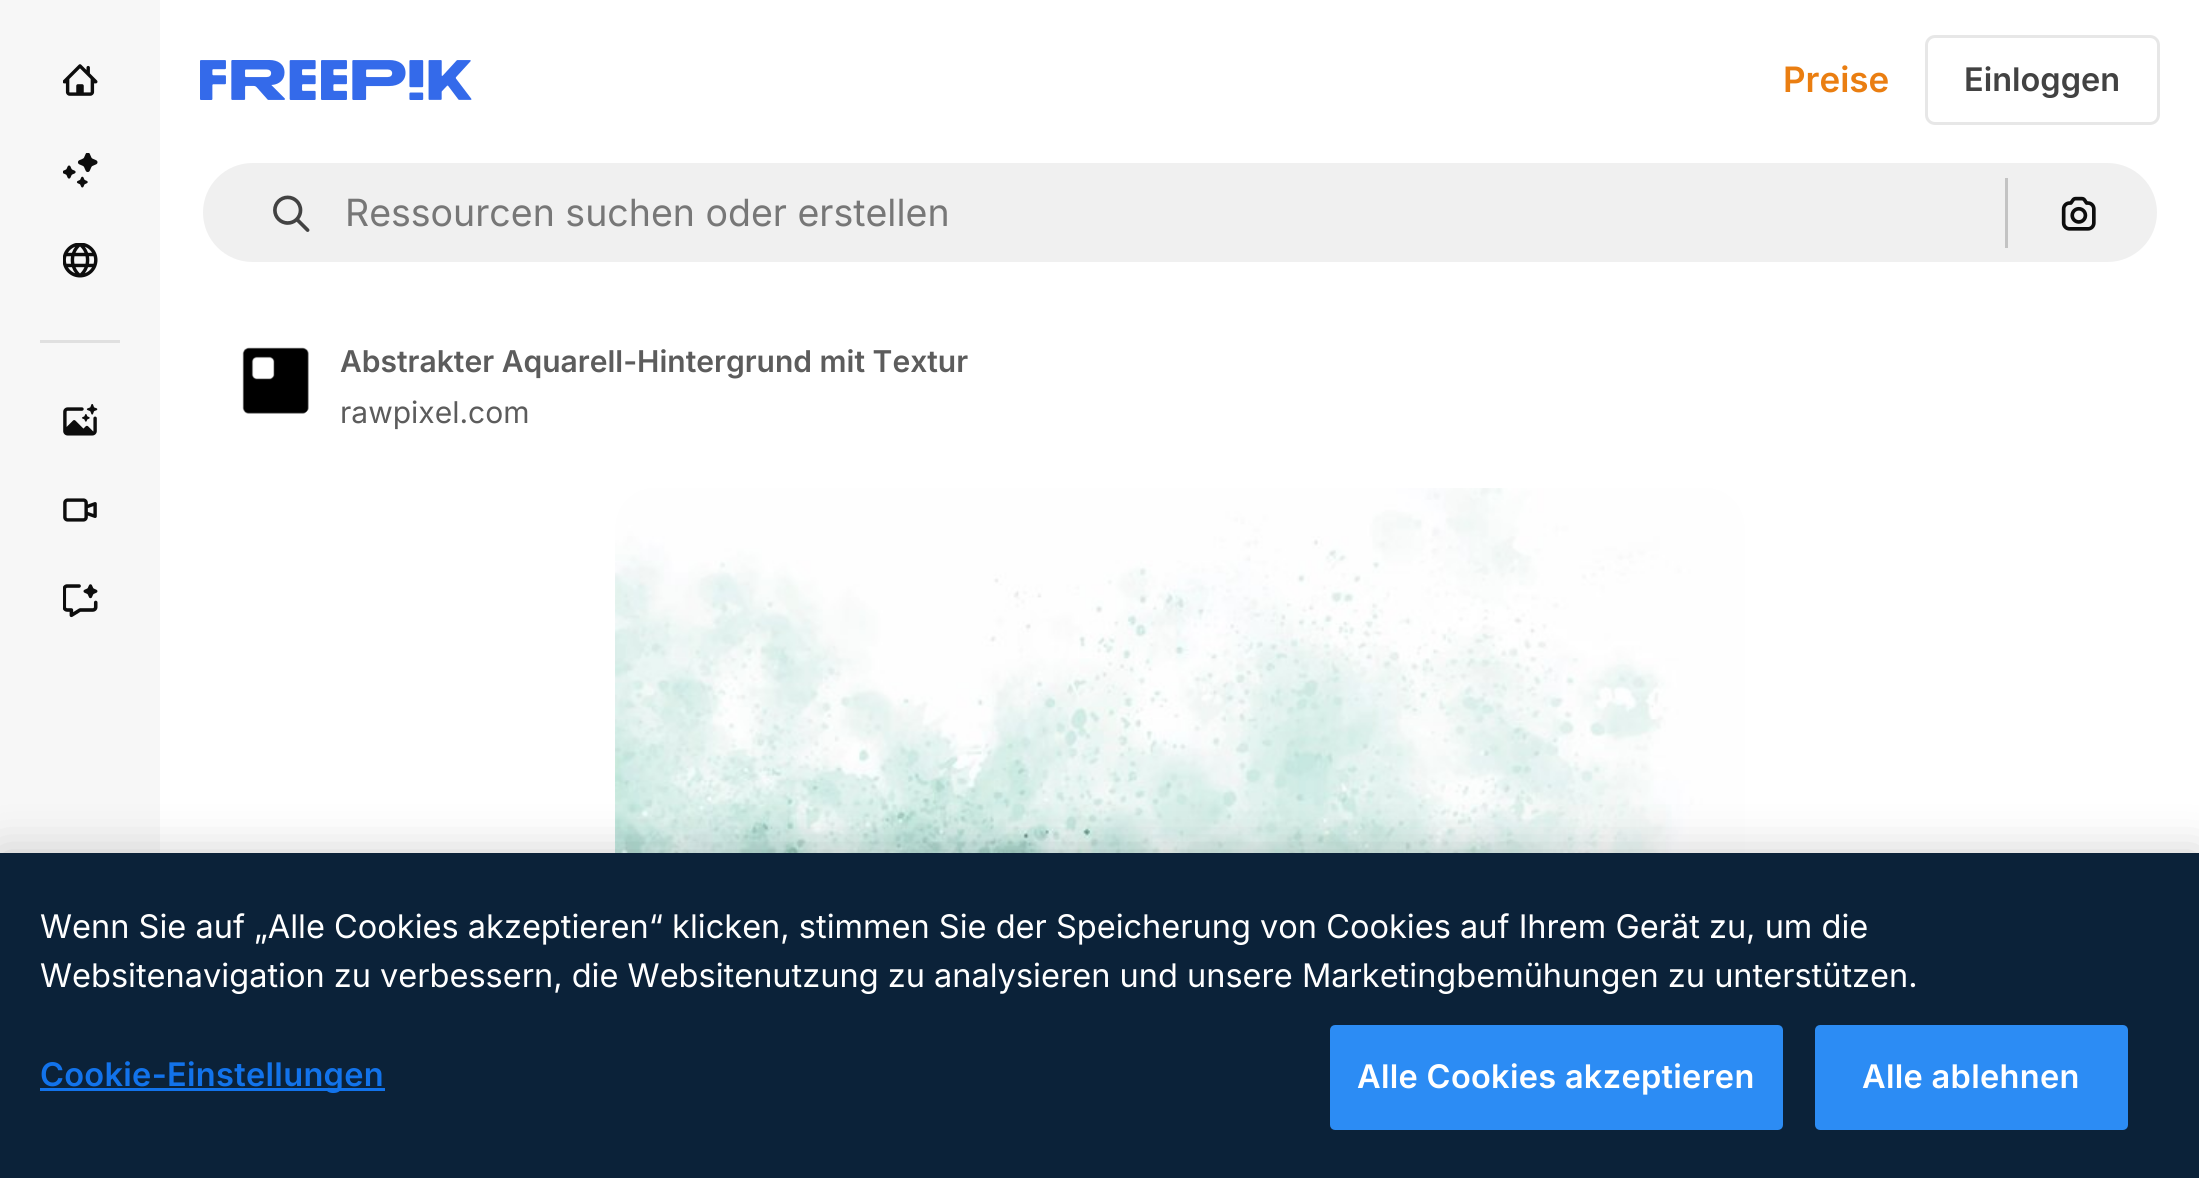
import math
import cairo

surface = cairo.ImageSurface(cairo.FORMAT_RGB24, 2199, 1178)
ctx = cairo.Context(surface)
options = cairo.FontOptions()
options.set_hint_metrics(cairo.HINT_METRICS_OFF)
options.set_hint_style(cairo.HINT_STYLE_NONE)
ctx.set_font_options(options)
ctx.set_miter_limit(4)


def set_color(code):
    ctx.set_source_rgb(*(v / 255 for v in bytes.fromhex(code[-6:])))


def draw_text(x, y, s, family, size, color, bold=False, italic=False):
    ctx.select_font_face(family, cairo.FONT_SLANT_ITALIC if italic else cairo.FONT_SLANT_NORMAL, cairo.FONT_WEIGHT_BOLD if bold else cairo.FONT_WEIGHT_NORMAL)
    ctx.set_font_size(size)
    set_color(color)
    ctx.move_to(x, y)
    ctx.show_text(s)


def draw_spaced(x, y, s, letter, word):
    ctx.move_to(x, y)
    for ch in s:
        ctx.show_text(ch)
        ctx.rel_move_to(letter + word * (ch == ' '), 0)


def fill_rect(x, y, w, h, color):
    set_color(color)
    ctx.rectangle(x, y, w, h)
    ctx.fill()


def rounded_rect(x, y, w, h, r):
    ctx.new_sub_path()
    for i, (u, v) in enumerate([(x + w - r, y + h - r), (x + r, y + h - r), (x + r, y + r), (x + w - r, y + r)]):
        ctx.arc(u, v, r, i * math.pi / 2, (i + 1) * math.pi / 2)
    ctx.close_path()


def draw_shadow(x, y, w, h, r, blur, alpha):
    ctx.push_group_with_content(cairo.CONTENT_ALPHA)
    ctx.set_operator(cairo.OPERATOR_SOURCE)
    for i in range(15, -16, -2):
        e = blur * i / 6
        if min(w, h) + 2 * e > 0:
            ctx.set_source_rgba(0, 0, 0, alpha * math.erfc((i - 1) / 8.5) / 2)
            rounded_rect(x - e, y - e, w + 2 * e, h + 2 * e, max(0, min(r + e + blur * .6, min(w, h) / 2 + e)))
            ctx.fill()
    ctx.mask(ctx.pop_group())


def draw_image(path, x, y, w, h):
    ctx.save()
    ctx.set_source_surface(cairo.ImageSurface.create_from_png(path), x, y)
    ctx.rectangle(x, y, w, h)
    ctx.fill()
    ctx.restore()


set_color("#ffffff")
ctx.paint()
fill_rect(0, 0, 160, 853, "#f7f7f7")
draw_image("assets/img1.png", 63, 64, 35, 32)
draw_image("assets/img2.png", 63, 153, 35, 35)
draw_image("assets/img3.png", 63, 243, 35, 35)
fill_rect(40, 340, 80, 3, "#e0e0e0")
draw_image("assets/img4.png", 63, 404, 35, 32)
draw_image("assets/img5.png", 63, 498, 34, 24)
draw_image("assets/img6.png", 63, 584, 35, 34)
draw_image("assets/img7.png", 200, 60, 272, 40)
draw_text(1783, 92, "Preise", "Inter SemiBold", 35, "#ea7e11")
rounded_rect(1926.5, 36.5, 232, 87, 8.5)
set_color("#e7e7e7")
ctx.set_line_width(3)
ctx.stroke()
draw_text(1964, 91, "Einloggen", "Inter SemiBold", 32.5, "#424242")
set_color("#f0f0f0")
rounded_rect(201.5, 161.5, 1957, 102, 51)
ctx.fill_preserve()
set_color("#ffffff")
ctx.stroke()
draw_image("assets/img8.png", 273, 195, 37, 37)
draw_text(345, 226, "Ressourcen suchen oder erstellen", "Inter", 37.5, "#777777")
fill_rect(2005, 178, 3, 70, "#c3c3c3")
draw_image("assets/img9.png", 2061, 196, 35, 35)
draw_image("assets/img10.png", 242, 347, 67, 67)
draw_text(340, 372, "Abstrakter Aquarell-Hintergrund mit Textur", "Inter SemiBold", 30, "#5c5c5c")
draw_text(340, 423, "rawpixel.com", "Inter", 30, "#5c5c5c")
draw_image("assets/img11.png", 615, 488, 1130, 365)
set_color("#000000")
draw_shadow(0, 853, 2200, 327, 0, 22.5, 0.2)
fill_rect(0, 853, 2199, 325, "#0b2239")
draw_text(40, 938, "Wenn Sie auf „Alle Cookies akzeptieren“ klicken, stimmen Sie der Speicherung von Cookies auf Ihrem Gerät zu, um die", "Inter", 32.52, "#ffffff")
draw_text(40, 987, "Websitenavigation zu verbessern, die Websitenutzung zu analysieren und unsere Marketingbemühungen zu unterstützen.", "Inter", 32.52, "#ffffff")
fill_rect(40, 1088, 345, 3, "#1273eb")
ctx.select_font_face("Inter SemiBold")
draw_spaced(40, 1086, "Cookie-Einstellungen", 0.3, 0)
set_color("#2c8cf4")
rounded_rect(1331.5, 1026.5, 450, 102, 3.5)
ctx.fill_preserve()
ctx.stroke()
set_color("#ffffff")
draw_spaced(1357, 1088, "Alle Cookies akzeptieren", 0.3, 0)
set_color("#2c8cf4")
rounded_rect(1816.5, 1026.5, 310, 102, 3.5)
ctx.fill_preserve()
ctx.stroke()
set_color("#ffffff")
draw_spaced(1862, 1088, "Alle ablehnen", 0.3, 0)
surface.write_to_png("output.png")
